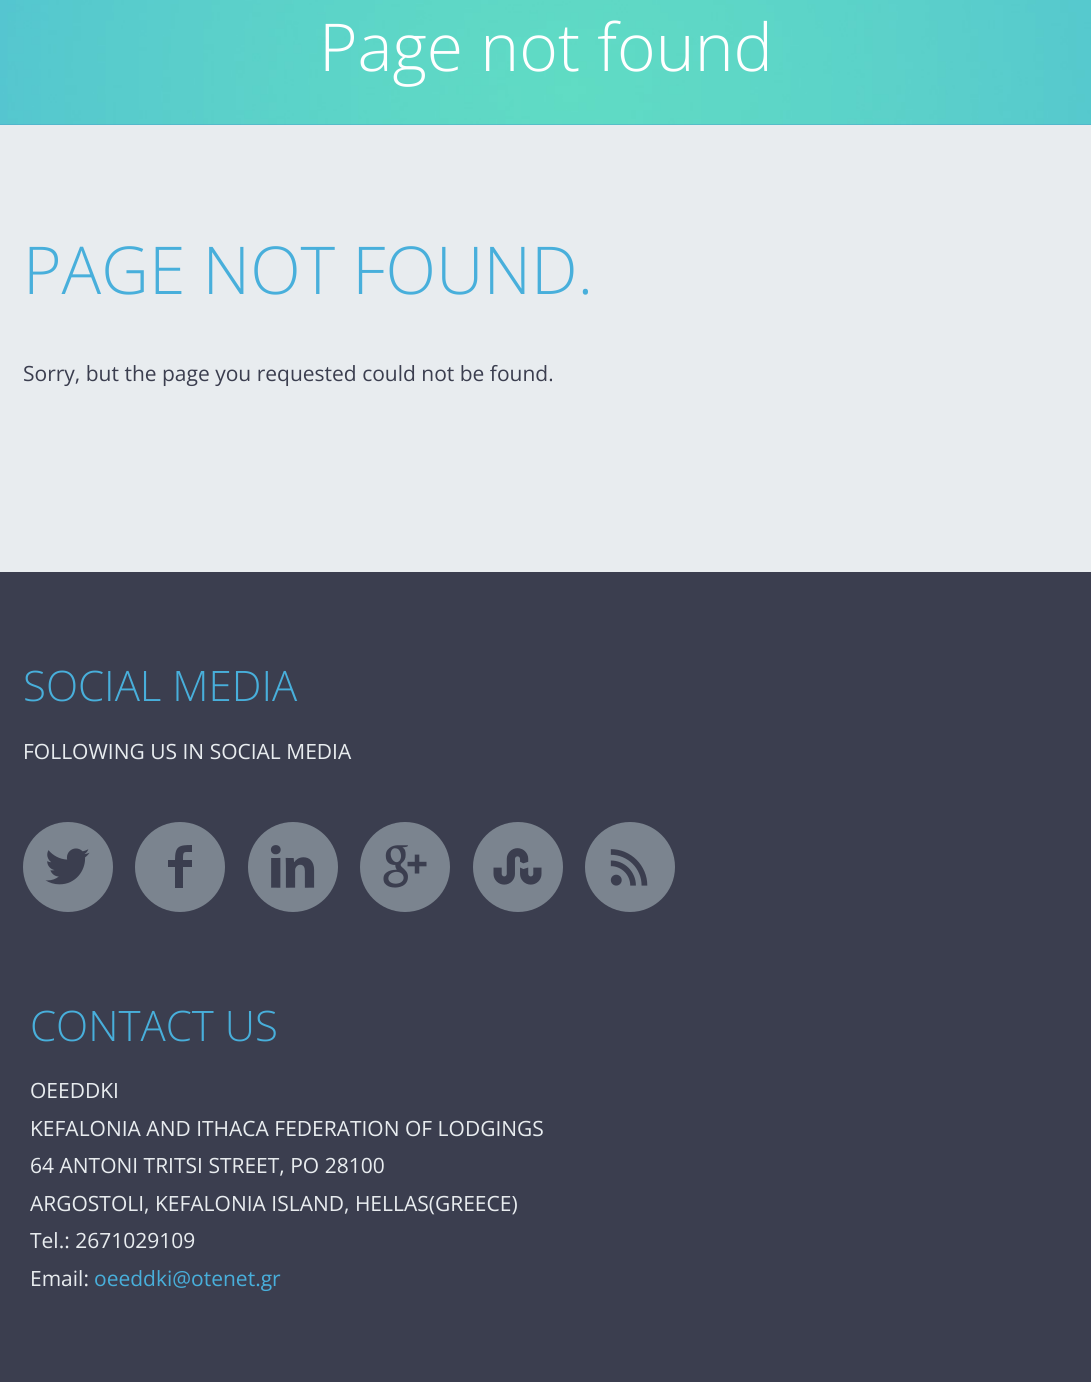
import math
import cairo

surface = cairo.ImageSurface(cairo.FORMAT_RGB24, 1091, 1382)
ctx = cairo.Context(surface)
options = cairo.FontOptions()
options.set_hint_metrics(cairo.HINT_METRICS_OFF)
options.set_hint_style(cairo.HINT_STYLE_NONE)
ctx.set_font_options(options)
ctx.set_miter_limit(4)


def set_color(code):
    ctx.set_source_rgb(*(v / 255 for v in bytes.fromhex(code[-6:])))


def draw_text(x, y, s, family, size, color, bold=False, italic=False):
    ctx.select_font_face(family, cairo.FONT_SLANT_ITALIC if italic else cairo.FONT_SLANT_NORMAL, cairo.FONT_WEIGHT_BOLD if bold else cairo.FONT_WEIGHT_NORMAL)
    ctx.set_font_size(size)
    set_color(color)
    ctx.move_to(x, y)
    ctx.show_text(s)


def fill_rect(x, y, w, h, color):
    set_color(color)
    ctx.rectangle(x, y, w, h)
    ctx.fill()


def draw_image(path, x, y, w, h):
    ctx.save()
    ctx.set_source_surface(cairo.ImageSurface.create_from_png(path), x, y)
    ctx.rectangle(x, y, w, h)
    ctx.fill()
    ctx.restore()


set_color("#e8ecef")
ctx.paint()
fill_rect(0, 124, 1091, 1, "#4fa4c8")
draw_image("assets/img1.png", 0, 0, 1091, 125)
draw_text(319, 71, "Page not found", "Open Sans Light", 66, "#ffffff")
draw_text(23, 294, "PAGE NOT FOUND.", "Open Sans Light", 66, "#48afdb")
draw_text(23, 381, "Sorry, but the page you requested could not be found.", "Open Sans", 21, "#3b3e4f")
fill_rect(0, 572, 1091, 810, "#3b3e4f")
draw_text(23, 701, "SOCIAL MEDIA", "Open Sans Light", 42, "#48afdb")
draw_text(23, 759, "FOLLOWING US IN SOCIAL MEDIA", "Open Sans", 21, "#e8ecef")
set_color("#7b848f")
ctx.new_path()
ctx.arc(68, 867, 45, 0, 2 * math.pi)
ctx.fill()
draw_image("assets/img2.png", 45, 848, 45, 37)
ctx.arc(180, 867, 45, 0, 2 * math.pi)
ctx.fill()
set_color("#3b3e4f")
ctx.new_path()
ctx.move_to(192, 852)
ctx.curve_to(183, 852, 183, 851, 183, 860)
ctx.line_to(192, 860)
ctx.line_to(192, 867)
ctx.line_to(183, 867)
ctx.line_to(183, 888)
ctx.line_to(175, 888)
ctx.line_to(175, 867)
ctx.line_to(168, 867)
ctx.line_to(168, 860)
ctx.line_to(175, 860)
ctx.curve_to(175, 846, 179, 845, 192, 845)
ctx.close_path()
ctx.fill()
set_color("#7b848f")
ctx.arc(293, 867, 45, 0, 2 * math.pi)
ctx.fill()
draw_image("assets/img3.png", 270, 845, 45, 43)
ctx.arc(405, 867, 45, 0, 2 * math.pi)
ctx.fill()
draw_image("assets/img4.png", 383, 845, 44, 43)
ctx.arc(518, 867, 45, 0, 2 * math.pi)
ctx.fill()
draw_image("assets/img5.png", 493, 848, 49, 37)
ctx.arc(630, 867, 45, 0, 2 * math.pi)
ctx.fill()
draw_image("assets/img6.png", 610, 849, 38, 37)
draw_text(30, 1041, "CONTACT US", "Open Sans Light", 42, "#48afdb")
draw_text(30, 1098, "OEEDDKI", "Open Sans", 21, "#e8ecef")
draw_text(30, 1136, "KEFALONIA AND ITHACA FEDERATION OF LODGINGS", "Open Sans", 21, "#e8ecef")
draw_text(30, 1173, "64 ANTONI TRITSI STREET, PO 28100", "Open Sans", 21, "#e8ecef")
draw_text(30, 1211, "ARGOSTOLI, KEFALONIA ISLAND, HELLAS(GREECE)", "Open Sans", 21, "#e8ecef")
draw_text(30, 1248, "Τel.: 2671029109", "Open Sans", 21, "#e8ecef")
draw_text(30, 1286, "Email:", "Open Sans", 21, "#e8ecef")
draw_text(94, 1286, "oeeddki@otenet.gr", "Open Sans", 21, "#48afdb")
surface.write_to_png("output.png")
